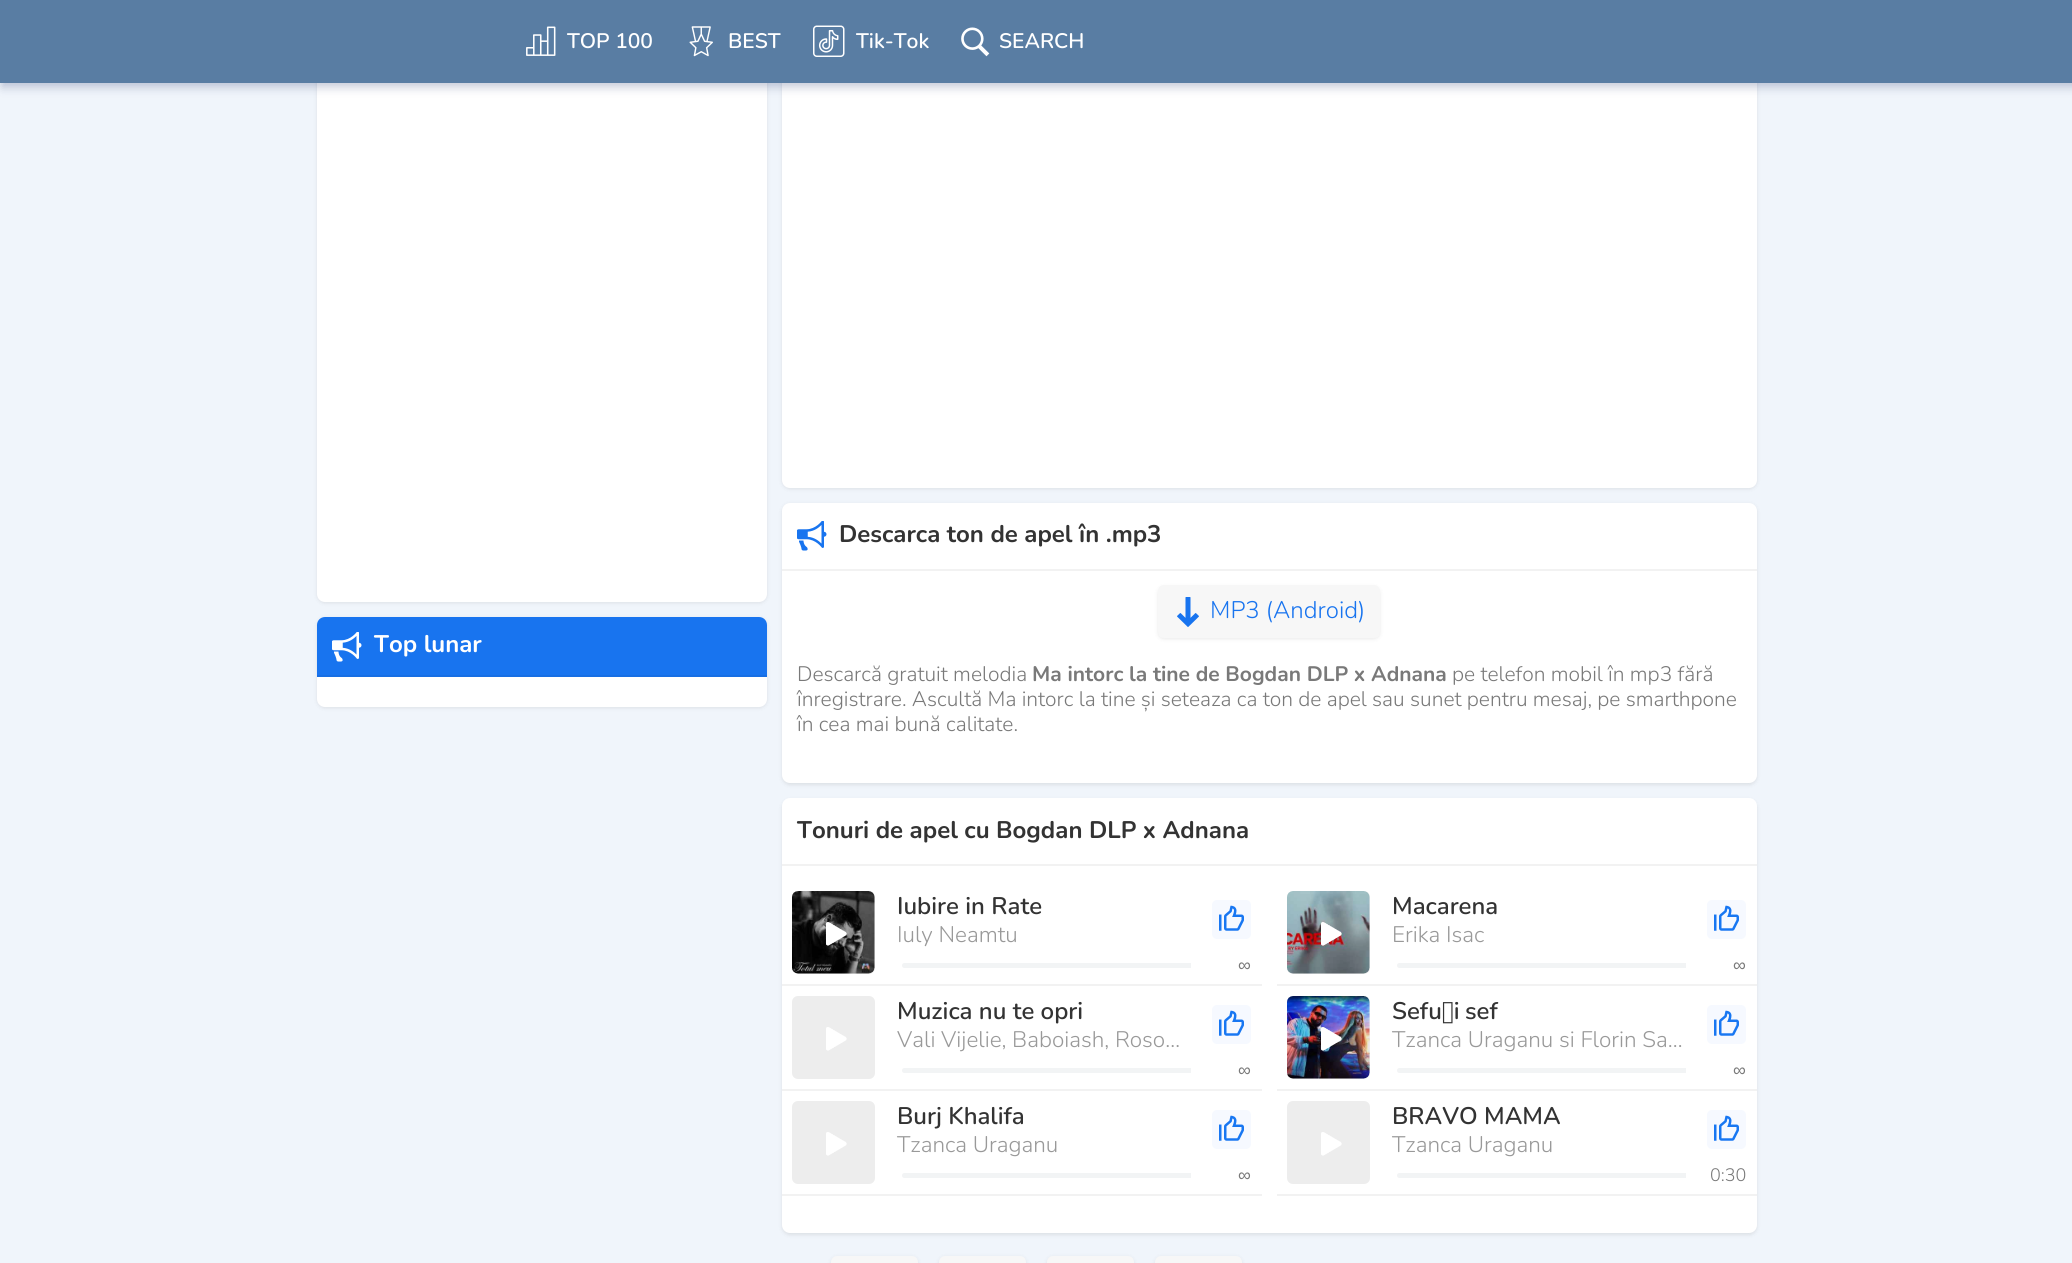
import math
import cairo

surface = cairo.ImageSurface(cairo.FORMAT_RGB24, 2072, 1263)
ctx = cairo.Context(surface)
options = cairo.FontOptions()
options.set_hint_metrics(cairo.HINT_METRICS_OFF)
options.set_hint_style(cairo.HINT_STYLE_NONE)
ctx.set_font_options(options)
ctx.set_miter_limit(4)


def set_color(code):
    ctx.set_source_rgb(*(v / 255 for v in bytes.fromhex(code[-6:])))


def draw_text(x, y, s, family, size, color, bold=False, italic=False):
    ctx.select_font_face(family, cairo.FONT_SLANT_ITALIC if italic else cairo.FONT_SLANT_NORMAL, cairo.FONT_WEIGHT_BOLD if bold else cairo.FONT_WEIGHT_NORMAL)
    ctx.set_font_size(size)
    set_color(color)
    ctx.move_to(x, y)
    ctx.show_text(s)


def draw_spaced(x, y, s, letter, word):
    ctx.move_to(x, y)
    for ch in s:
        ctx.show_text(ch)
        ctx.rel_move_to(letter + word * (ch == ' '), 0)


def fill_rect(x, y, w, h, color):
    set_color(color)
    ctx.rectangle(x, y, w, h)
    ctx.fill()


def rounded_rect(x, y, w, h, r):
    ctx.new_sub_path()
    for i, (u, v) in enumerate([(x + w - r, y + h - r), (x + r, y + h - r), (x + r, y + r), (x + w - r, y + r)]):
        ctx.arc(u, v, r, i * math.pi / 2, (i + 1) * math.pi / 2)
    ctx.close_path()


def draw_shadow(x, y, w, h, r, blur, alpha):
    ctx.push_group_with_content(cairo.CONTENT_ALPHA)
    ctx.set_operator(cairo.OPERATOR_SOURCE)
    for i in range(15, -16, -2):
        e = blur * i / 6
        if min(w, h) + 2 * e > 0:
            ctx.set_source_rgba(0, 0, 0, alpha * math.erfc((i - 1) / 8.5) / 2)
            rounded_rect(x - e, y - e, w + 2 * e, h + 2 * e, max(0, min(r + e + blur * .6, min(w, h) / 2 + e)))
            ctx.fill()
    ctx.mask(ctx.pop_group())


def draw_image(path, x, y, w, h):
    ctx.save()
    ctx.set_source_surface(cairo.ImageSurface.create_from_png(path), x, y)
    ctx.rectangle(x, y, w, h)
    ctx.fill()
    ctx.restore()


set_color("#f0f5fb")
ctx.paint()
set_color("#000000")
draw_shadow(317, -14, 450, 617, 8, 2, 0.09)
set_color("#ffffff")
rounded_rect(317, -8, 450, 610, 8)
ctx.fill()
set_color("#000000")
draw_shadow(782, -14, 975, 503, 8, 2, 0.09)
set_color("#ffffff")
rounded_rect(782, -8, 975, 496, 8)
ctx.fill()
set_color("#071956")
draw_shadow(2, 5, 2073, 82, 0, 5, 0.24)
fill_rect(0, 0, 2072, 83, "#597da3")
draw_image("assets/img1.png", 526, 26, 30, 30)
draw_text(567, 48, "TOP 100", "Nunito SemiBold", 21, "#ffffff")
draw_image("assets/img2.png", 689, 26, 24, 31)
draw_text(728, 48, "BEST", "Nunito SemiBold", 21, "#ffffff")
draw_image("assets/img3.png", 813, 25, 32, 32)
draw_text(856, 48, "Tik-Tok", "Nunito SemiBold", 21, "#ffffff")
draw_image("assets/img4.png", 961, 27, 29, 30)
draw_text(999, 48, "SEARCH", "Nunito SemiBold", 21, "#ffffff")
set_color("#000000")
draw_shadow(317, 618, 450, 90, 8, 2, 0.09)
set_color("#ffffff")
rounded_rect(317, 617, 450, 90, 8)
ctx.fill()
set_color("#1874ef")
ctx.new_path()
ctx.move_to(325, 617)
ctx.line_to(759, 617)
ctx.curve_to(763.5, 617, 767, 620.5, 767, 625)
ctx.line_to(767, 677)
ctx.line_to(317, 677)
ctx.line_to(317, 625)
ctx.curve_to(317, 620.5, 320.5, 617, 325, 617)
ctx.close_path()
ctx.fill()
fill_rect(317, 675, 450, 2, "#176ee3")
draw_image("assets/img5.png", 332, 632, 30, 30)
draw_text(374, 652, "Top lunar", "Nunito", 24, "#ffffff", bold=True)
set_color("#000000")
draw_shadow(782, 504, 975, 281, 8, 2, 0.09)
set_color("#ffffff")
rounded_rect(782, 503, 975, 280, 8)
ctx.fill()
fill_rect(782, 569, 975, 2, "#f2f2f2")
draw_image("assets/img6.png", 797, 521, 30, 30)
draw_text(839, 542, "Descarca ton de apel în .mp3", "Nunito", 24, "#333333", bold=True)
set_color("#000000")
draw_shadow(1158, 587, 222, 52, 6, 2, 0.09)
set_color("#f7f7f7")
rounded_rect(1158, 585, 222, 53, 6)
ctx.fill()
draw_image("assets/img7.png", 1177, 597, 22, 30)
draw_text(1210, 618, "MP3 (Android)", "Nunito Light", 24, "#1874ef")
draw_text(797, 681, "Descarcă gratuit melodia", "Nunito Light", 21, "#797979")
draw_text(1032, 681, "Ma intorc la tine de Bogdan DLP x Adnana", "Nunito", 21, "#797979", bold=True)
draw_text(1452, 681, "pe telefon mobil în mp3 fără", "Nunito Light", 21, "#797979")
draw_text(797, 706, "înregistrare. Ascultă Ma intorc la tine și seteaza ca ton de apel sau sunet pentru mesaj, pe smarthpone", "Nunito Light", 21, "#797979")
draw_text(797, 731, "în cea mai bună calitate.", "Nunito Light", 21, "#797979")
set_color("#000000")
draw_shadow(782, 800, 975, 435, 8, 2, 0.09)
set_color("#ffffff")
rounded_rect(782, 798, 975, 435, 8)
ctx.fill()
fill_rect(782, 864, 975, 2, "#f2f2f2")
draw_text(797, 838, "Tonuri de apel cu Bogdan DLP x Adnana", "Nunito", 24, "#333333", bold=True)
fill_rect(782, 984, 480, 2, "#f2f2f2")
draw_image("assets/img8.png", 792, 891, 83, 83)
ctx.set_source_rgba(0, 0, 0, 0.07)
rounded_rect(792, 891, 83, 83, 6)
ctx.fill()
draw_image("assets/img9.png", 826, 922, 21, 24)
draw_text(897, 914, "Iubire in Rate", "Nunito SemiBold", 24, "#333333")
draw_text(897, 942, "Iuly Neamtu", "Nunito Light", 22.5, "#999999")
set_color("#f6f9ff")
rounded_rect(1212, 900, 39, 39, 5)
ctx.fill()
draw_image("assets/img10.png", 1219, 905, 25, 26)
set_color("#f2f4f5")
ctx.new_path()
ctx.move_to(904.5, 963)
ctx.line_to(1191, 963)
ctx.line_to(1191, 968)
ctx.line_to(904.5, 968)
ctx.curve_to(903, 968, 902, 967, 902, 965.5)
ctx.curve_to(902, 964, 903, 963, 904.5, 963)
ctx.close_path()
ctx.fill()
draw_text(1238, 971, "∞", "Liberation Sans", 18, "#797979")
fill_rect(1277, 984, 480, 2, "#f2f2f2")
draw_image("assets/img11.png", 1287, 891, 83, 83)
ctx.set_source_rgba(0, 0, 0, 0.07)
rounded_rect(1287, 891, 83, 83, 6)
ctx.fill()
draw_image("assets/img12.png", 1321, 922, 21, 24)
draw_text(1392, 914, "Macarena", "Nunito SemiBold", 24, "#333333")
draw_text(1392, 942, "Erika Isac", "Nunito Light", 22.5, "#999999")
set_color("#f6f9ff")
rounded_rect(1707, 900, 39, 39, 5)
ctx.fill()
draw_image("assets/img10.png", 1714, 905, 25, 26)
set_color("#f2f4f5")
ctx.new_path()
ctx.move_to(1399.5, 963)
ctx.line_to(1686, 963)
ctx.line_to(1686, 968)
ctx.line_to(1399.5, 968)
ctx.curve_to(1398, 968, 1397, 967, 1397, 965.5)
ctx.curve_to(1397, 964, 1398, 963, 1399.5, 963)
ctx.close_path()
ctx.fill()
draw_text(1733, 971, "∞", "Liberation Sans", 18, "#797979")
fill_rect(782, 1089, 480, 2, "#f2f2f2")
set_color("#ededed")
rounded_rect(792, 996, 83, 83, 6)
ctx.fill()
draw_image("assets/img13.png", 826, 1027, 21, 24)
draw_text(897, 1019, "Muzica nu te opri", "Nunito SemiBold", 24, "#333333")
draw_text(897, 1047, "Vali Vijelie, Baboiash, Roso…", "Nunito Light", 22.5, "#999999")
set_color("#f6f9ff")
rounded_rect(1212, 1005, 39, 39, 5)
ctx.fill()
draw_image("assets/img10.png", 1219, 1010, 25, 26)
set_color("#f2f4f5")
ctx.new_path()
ctx.move_to(904.5, 1068)
ctx.line_to(1191, 1068)
ctx.line_to(1191, 1073)
ctx.line_to(904.5, 1073)
ctx.curve_to(903, 1073, 902, 1072, 902, 1070.5)
ctx.curve_to(902, 1069, 903, 1068, 904.5, 1068)
ctx.close_path()
ctx.fill()
draw_text(1238, 1076, "∞", "Liberation Sans", 18, "#797979")
fill_rect(1277, 1089, 480, 2, "#f2f2f2")
draw_image("assets/img14.png", 1287, 996, 83, 83)
ctx.set_source_rgba(0, 0, 0, 0.07)
rounded_rect(1287, 996, 83, 83, 6)
ctx.fill()
draw_image("assets/img15.png", 1321, 1027, 21, 24)
ctx.select_font_face("Nunito SemiBold")
ctx.set_font_size(24)
set_color("#333333")
draw_spaced(1392, 1019, "Sefu‑i sef", 0, -1)
draw_text(1392, 1047, "Tzanca Uraganu si Florin Sa…", "Nunito Light", 22.5, "#999999")
set_color("#f6f9ff")
rounded_rect(1707, 1005, 39, 39, 5)
ctx.fill()
draw_image("assets/img10.png", 1714, 1010, 25, 26)
set_color("#f2f4f5")
ctx.new_path()
ctx.move_to(1399.5, 1068)
ctx.line_to(1686, 1068)
ctx.line_to(1686, 1073)
ctx.line_to(1399.5, 1073)
ctx.curve_to(1398, 1073, 1397, 1072, 1397, 1070.5)
ctx.curve_to(1397, 1069, 1398, 1068, 1399.5, 1068)
ctx.close_path()
ctx.fill()
draw_text(1733, 1076, "∞", "Liberation Sans", 18, "#797979")
fill_rect(782, 1194, 480, 2, "#f2f2f2")
set_color("#ededed")
rounded_rect(792, 1101, 83, 83, 6)
ctx.fill()
draw_image("assets/img13.png", 826, 1132, 21, 24)
draw_text(897, 1124, "Burj Khalifa", "Nunito SemiBold", 24, "#333333")
draw_text(897, 1152, "Tzanca Uraganu", "Nunito Light", 22.5, "#999999")
set_color("#f6f9ff")
rounded_rect(1212, 1110, 39, 39, 5)
ctx.fill()
draw_image("assets/img10.png", 1219, 1115, 25, 26)
set_color("#f2f4f5")
ctx.new_path()
ctx.move_to(904.5, 1173)
ctx.line_to(1191, 1173)
ctx.line_to(1191, 1178)
ctx.line_to(904.5, 1178)
ctx.curve_to(903, 1178, 902, 1177, 902, 1175.5)
ctx.curve_to(902, 1174, 903, 1173, 904.5, 1173)
ctx.close_path()
ctx.fill()
draw_text(1238, 1181, "∞", "Liberation Sans", 18, "#797979")
fill_rect(1277, 1194, 480, 2, "#f2f2f2")
set_color("#ededed")
rounded_rect(1287, 1101, 83, 83, 6)
ctx.fill()
draw_image("assets/img16.png", 1321, 1132, 21, 24)
draw_text(1392, 1124, "BRAVO MAMA", "Nunito SemiBold", 24, "#333333")
draw_text(1392, 1152, "Tzanca Uraganu", "Nunito Light", 22.5, "#999999")
set_color("#f6f9ff")
rounded_rect(1707, 1110, 39, 39, 5)
ctx.fill()
draw_image("assets/img10.png", 1714, 1115, 25, 26)
set_color("#f2f4f5")
ctx.new_path()
ctx.move_to(1399.5, 1173)
ctx.line_to(1686, 1173)
ctx.line_to(1686, 1178)
ctx.line_to(1399.5, 1178)
ctx.curve_to(1398, 1178, 1397, 1177, 1397, 1175.5)
ctx.curve_to(1397, 1174, 1398, 1173, 1399.5, 1173)
ctx.close_path()
ctx.fill()
draw_text(1710, 1181, "0:30", "Nunito Light", 18, "#797979")
set_color("#000000")
draw_shadow(831, 1257, 87, 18, 6, 2, 0.09)
set_color("#f7f7f7")
rounded_rect(831, 1256, 87, 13, 6)
ctx.fill()
set_color("#000000")
draw_shadow(939, 1257, 87, 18, 6, 2, 0.09)
set_color("#f7f7f7")
rounded_rect(939, 1256, 87, 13, 6)
ctx.fill()
set_color("#000000")
draw_shadow(1047, 1257, 87, 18, 6, 2, 0.09)
set_color("#f7f7f7")
rounded_rect(1047, 1256, 87, 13, 6)
ctx.fill()
set_color("#000000")
draw_shadow(1155, 1257, 87, 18, 6, 2, 0.09)
set_color("#f7f7f7")
rounded_rect(1155, 1256, 87, 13, 6)
ctx.fill()
surface.write_to_png("output.png")
